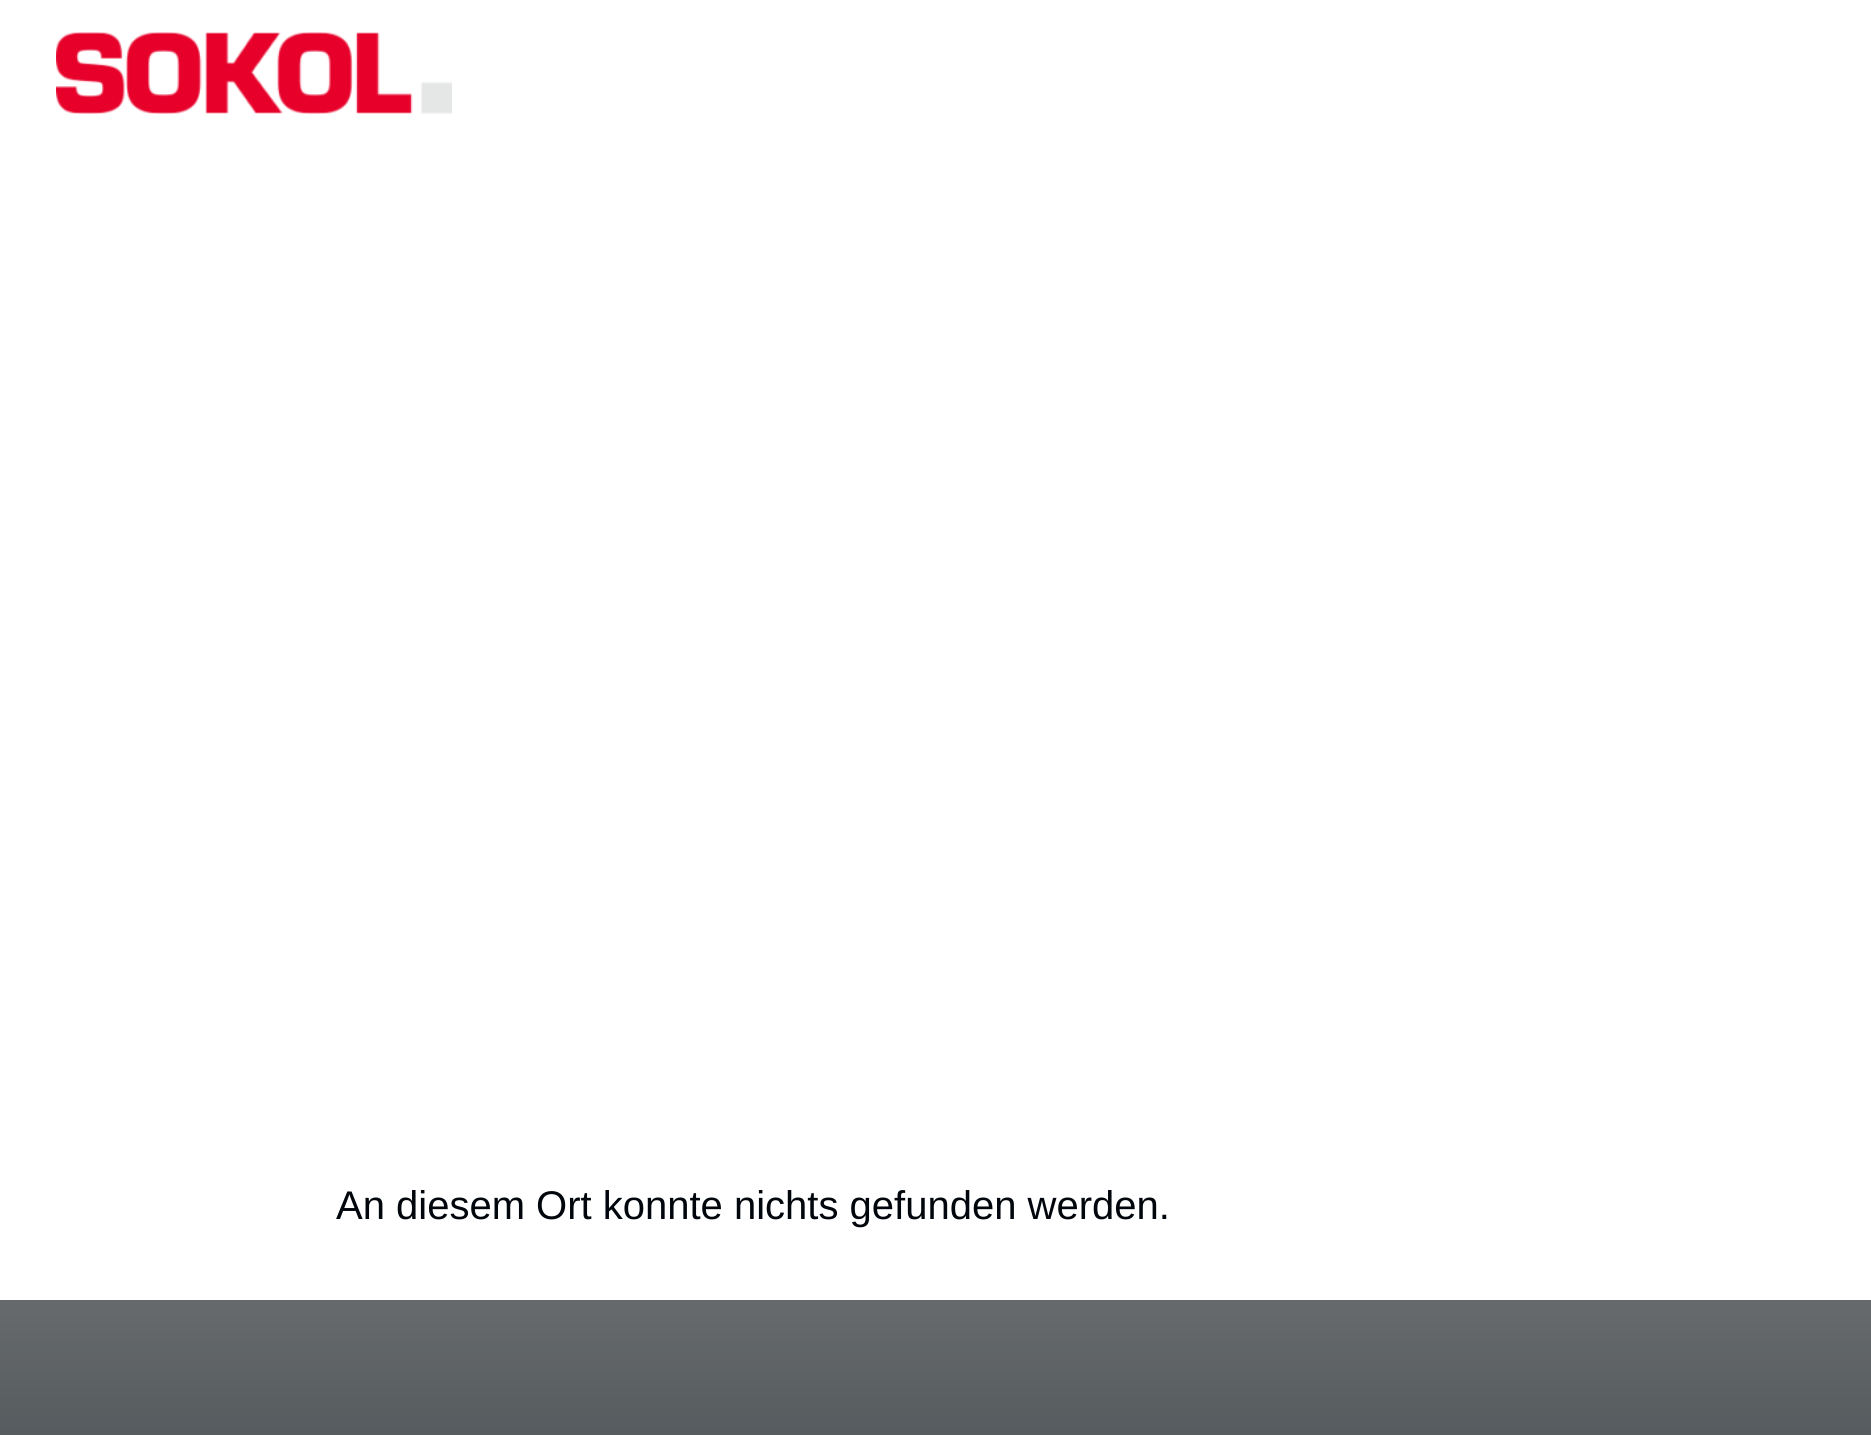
import math
import cairo

surface = cairo.ImageSurface(cairo.FORMAT_RGB24, 1871, 1435)
ctx = cairo.Context(surface)
options = cairo.FontOptions()
options.set_hint_metrics(cairo.HINT_METRICS_OFF)
options.set_hint_style(cairo.HINT_STYLE_NONE)
ctx.set_font_options(options)
ctx.set_miter_limit(4)


def set_color(code):
    ctx.set_source_rgb(*(v / 255 for v in bytes.fromhex(code[-6:])))


def draw_text(x, y, s, family, size, color, bold=False, italic=False):
    ctx.select_font_face(family, cairo.FONT_SLANT_ITALIC if italic else cairo.FONT_SLANT_NORMAL, cairo.FONT_WEIGHT_BOLD if bold else cairo.FONT_WEIGHT_NORMAL)
    ctx.set_font_size(size)
    set_color(color)
    ctx.move_to(x, y)
    ctx.show_text(s)


def draw_image(path, x, y, w, h):
    ctx.save()
    ctx.set_source_surface(cairo.ImageSurface.create_from_png(path), x, y)
    ctx.rectangle(x, y, w, h)
    ctx.fill()
    ctx.restore()


set_color("#ffffff")
ctx.paint()
draw_image("assets/img1.png", 56, 32, 396, 82)
draw_text(336, 1219, "An diesem Ort konnte nichts gefunden werden.", "Liberation Sans", 40, "#00060c")
gradient = cairo.LinearGradient(936, 1300, 936, 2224)
gradient.add_color_stop_rgba(0, 0.4, 0.416, 0.427, 1)
gradient.add_color_stop_rgba(1, 0, 0.024, 0.047, 1)
ctx.set_source(gradient)
ctx.rectangle(0, 1300, 1871, 135)
ctx.fill()
surface.write_to_png("output.png")
